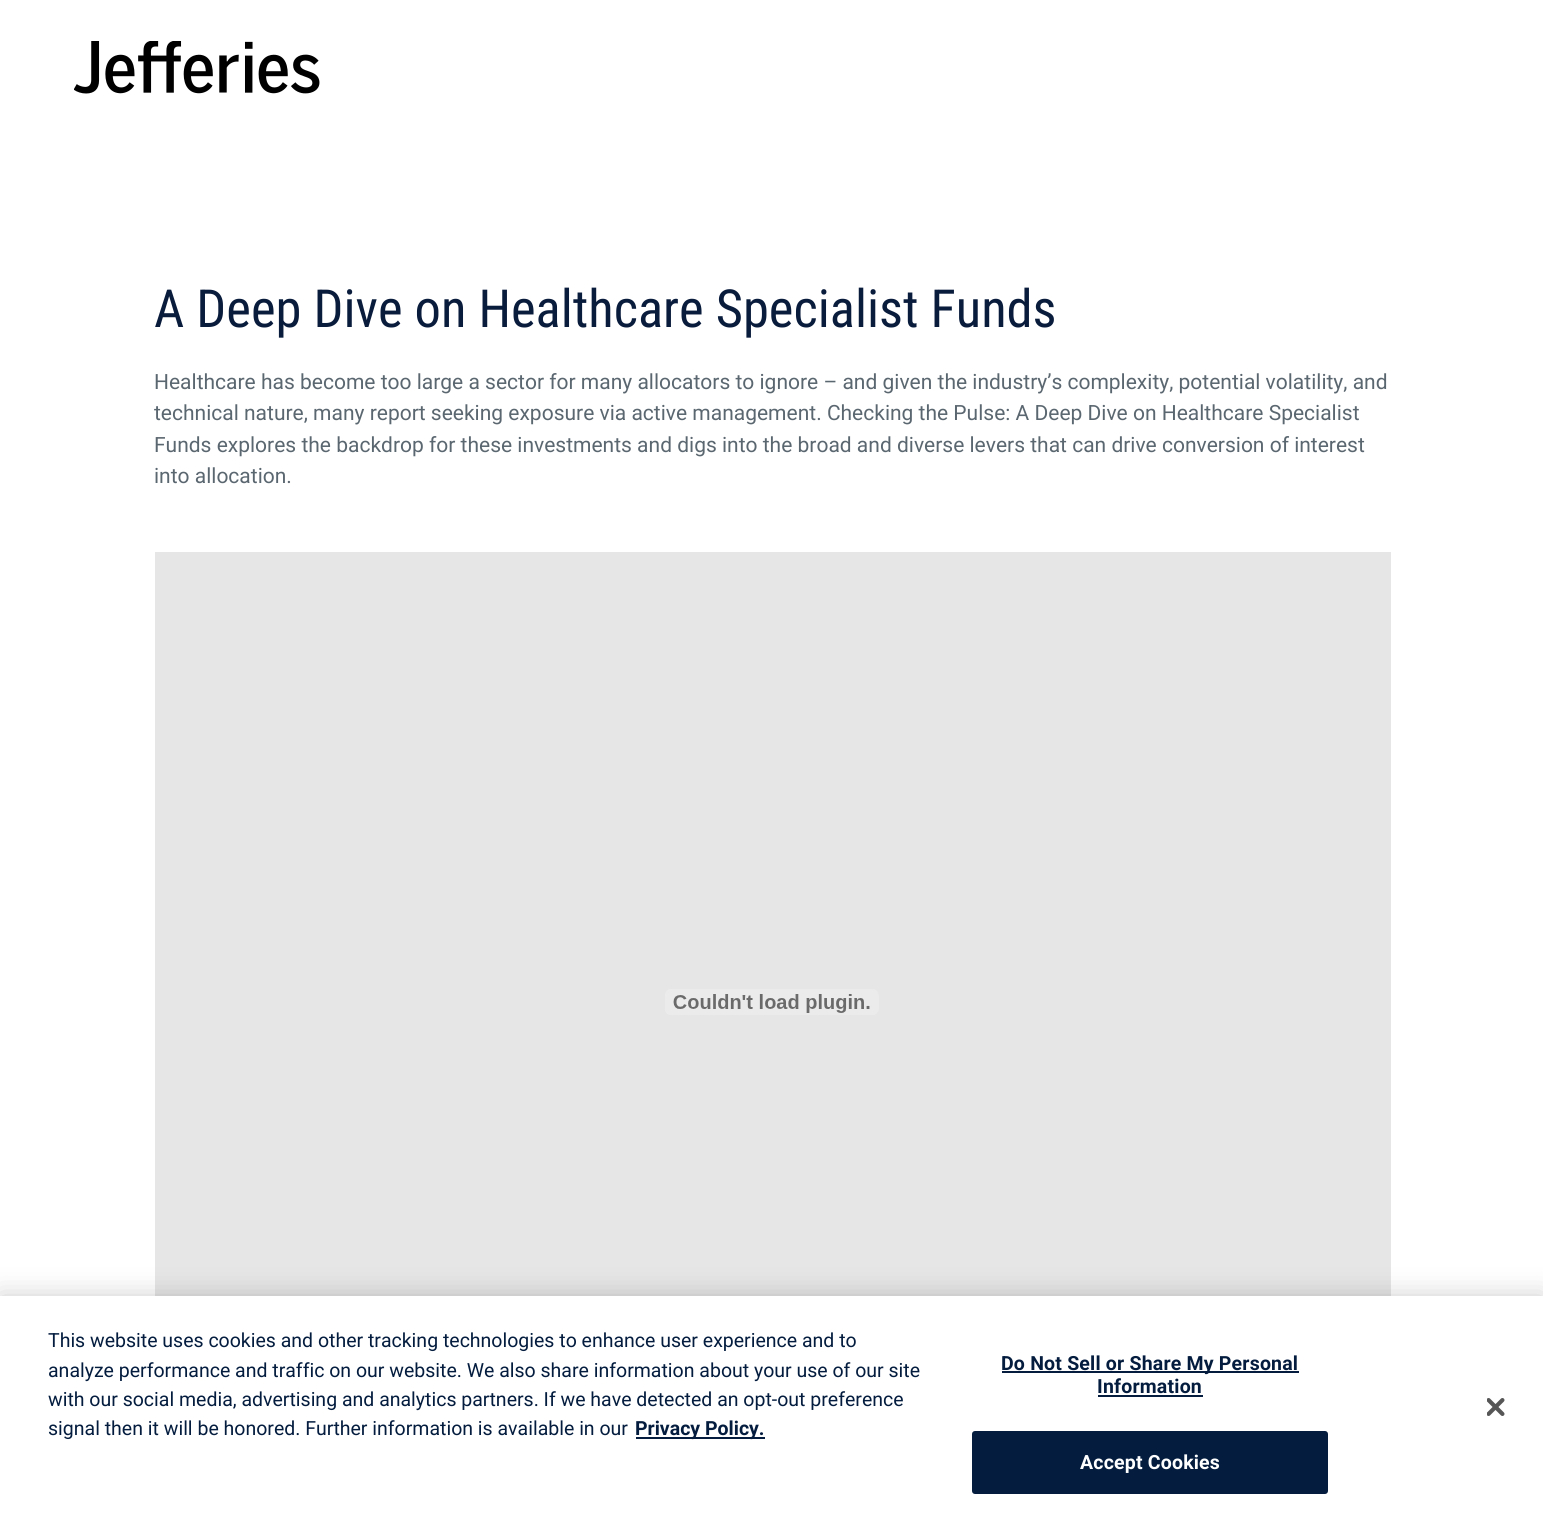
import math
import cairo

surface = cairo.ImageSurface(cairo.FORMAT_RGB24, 1543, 1524)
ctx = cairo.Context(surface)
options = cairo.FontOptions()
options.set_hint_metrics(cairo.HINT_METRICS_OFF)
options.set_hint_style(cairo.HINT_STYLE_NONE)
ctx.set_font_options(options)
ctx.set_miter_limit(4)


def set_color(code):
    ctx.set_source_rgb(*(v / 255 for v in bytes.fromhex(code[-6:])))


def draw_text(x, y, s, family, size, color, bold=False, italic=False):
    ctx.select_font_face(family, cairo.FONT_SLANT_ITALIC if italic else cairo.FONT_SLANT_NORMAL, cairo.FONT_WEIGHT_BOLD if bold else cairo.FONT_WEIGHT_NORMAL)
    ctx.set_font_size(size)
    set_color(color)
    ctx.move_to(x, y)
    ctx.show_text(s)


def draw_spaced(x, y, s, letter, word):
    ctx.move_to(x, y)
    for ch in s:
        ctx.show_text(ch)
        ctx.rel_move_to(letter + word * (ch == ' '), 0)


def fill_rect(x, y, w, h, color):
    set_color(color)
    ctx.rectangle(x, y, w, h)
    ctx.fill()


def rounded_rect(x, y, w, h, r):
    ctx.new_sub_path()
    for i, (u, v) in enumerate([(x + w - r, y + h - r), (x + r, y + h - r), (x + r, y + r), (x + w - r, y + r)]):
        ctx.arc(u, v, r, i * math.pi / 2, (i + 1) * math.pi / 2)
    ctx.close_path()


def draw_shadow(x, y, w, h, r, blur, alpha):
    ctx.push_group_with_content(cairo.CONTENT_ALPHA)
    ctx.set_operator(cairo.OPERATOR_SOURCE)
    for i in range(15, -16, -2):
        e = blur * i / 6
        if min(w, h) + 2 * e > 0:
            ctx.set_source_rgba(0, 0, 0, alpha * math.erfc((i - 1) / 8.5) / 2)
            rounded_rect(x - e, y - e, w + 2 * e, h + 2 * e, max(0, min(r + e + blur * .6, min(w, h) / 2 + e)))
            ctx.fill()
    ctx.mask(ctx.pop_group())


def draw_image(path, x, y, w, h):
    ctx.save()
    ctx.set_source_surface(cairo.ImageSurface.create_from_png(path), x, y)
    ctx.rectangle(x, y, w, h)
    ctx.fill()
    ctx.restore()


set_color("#ffffff")
ctx.paint()
draw_image("assets/img1.png", 74, 41, 246, 53)
draw_text(154, 327, "A Deep Dive on Healthcare Specialist Funds", "Roboto Condensed", 52.5, "#0a1c3c")
draw_text(154, 389, "Healthcare has become too large a sector for many allocators to ignore – and given the industry’s complexity, potential volatility, and", "Roboto", 21, "#5b6770")
draw_text(154, 420, "technical nature, many report seeking exposure via active management. Checking the Pulse: A Deep Dive on Healthcare Specialist", "Roboto", 21, "#5b6770")
draw_text(154, 452, "Funds explores the backdrop for these investments and digs into the broad and diverse levers that can drive conversion of interest", "Roboto", 21, "#5b6770")
draw_text(154, 483, "into allocation.", "Roboto", 21, "#5b6770")
fill_rect(155, 552, 1236, 744, "#e6e6e6")
draw_image("assets/img2.png", 665, 989, 214, 26)
set_color("#000000")
draw_shadow(0, 1296, 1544, 228, 0, 13.5, 0.2)
fill_rect(0, 1296, 1543, 228, "#ffffff")
draw_text(48, 1347, "This website uses cookies and other tracking technologies to enhance user experience and to", "Roboto", 19.5, "#041d3f")
draw_text(48, 1377, "analyze performance and traffic on our website. We also share information about your use of our site", "Roboto", 19.5, "#041d3f")
draw_text(48, 1406, "with our social media, advertising and analytics partners. If we have detected an opt-out preference", "Roboto", 19.5, "#041d3f")
draw_text(48, 1435, "signal then it will be honored. Further information is available in our", "Roboto", 19.5, "#041d3f")
fill_rect(636, 1437, 129, 2, "#041d3f")
draw_text(635, 1435, "Privacy Policy.", "Roboto", 19.5, "#041d3f", bold=True)
fill_rect(1002, 1371, 297, 2, "#041d3f")
draw_spaced(1001, 1370, "Do Not Sell or Share My Personal", 0.2, 0)
draw_spaced(1097, 1393, "Information", 0.2, 0)
fill_rect(1098, 1395, 105, 2, "#041d3f")
rounded_rect(973, 1432, 354, 61, 2)
ctx.fill_preserve()
ctx.stroke()
set_color("#ffffff")
draw_spaced(1080, 1469, "Accept Cookies", 0.2, 0)
draw_image("assets/img3.png", 1487, 1398, 18, 18)
surface.write_to_png("output.png")
